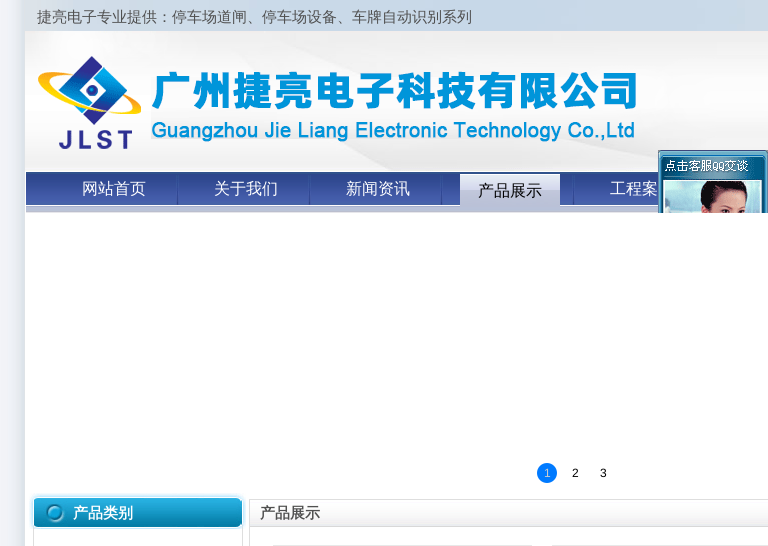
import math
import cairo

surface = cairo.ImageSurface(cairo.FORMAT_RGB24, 768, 546)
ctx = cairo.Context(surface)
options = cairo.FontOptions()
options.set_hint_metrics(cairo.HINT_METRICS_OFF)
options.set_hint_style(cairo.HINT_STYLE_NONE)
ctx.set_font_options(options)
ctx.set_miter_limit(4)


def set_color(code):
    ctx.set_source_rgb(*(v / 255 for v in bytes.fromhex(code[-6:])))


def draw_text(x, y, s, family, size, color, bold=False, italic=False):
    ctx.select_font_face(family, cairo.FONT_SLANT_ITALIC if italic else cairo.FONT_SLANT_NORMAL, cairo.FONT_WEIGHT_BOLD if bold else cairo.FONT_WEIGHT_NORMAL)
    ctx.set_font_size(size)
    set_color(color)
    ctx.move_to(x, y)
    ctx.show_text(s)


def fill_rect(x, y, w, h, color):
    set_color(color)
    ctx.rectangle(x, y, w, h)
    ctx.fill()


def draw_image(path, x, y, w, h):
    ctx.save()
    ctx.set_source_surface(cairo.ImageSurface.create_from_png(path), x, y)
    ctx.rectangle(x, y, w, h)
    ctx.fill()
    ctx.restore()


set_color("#ffffff")
ctx.paint()
draw_image("assets/img1.png", 0, 0, 25, 546)
draw_image("assets/img2.png", 25, 0, 743, 31)
draw_text(37, 22, "捷亮电子专业提供：停车场道闸、停车场设备、车牌自动识别系列", "WenQuanYi Zen Hei Medium", 15, "#505050")
draw_image("assets/img3.png", 25, 31, 743, 140)
draw_image("assets/img4.png", 26, 172, 632, 41)
draw_image("assets/img5.png", 176, 175, 3, 30)
draw_text(82, 194, "网站首页", "WenQuanYi Zen Hei Medium", 16, "#ffffff")
draw_image("assets/img5.png", 308, 175, 3, 30)
draw_text(214, 194, "关于我们", "WenQuanYi Zen Hei Medium", 16, "#ffffff")
draw_image("assets/img5.png", 440, 175, 3, 30)
draw_text(346, 194, "新闻资讯", "WenQuanYi Zen Hei Medium", 16, "#ffffff")
draw_image("assets/img5.png", 572, 175, 3, 30)
draw_image("assets/img6.png", 460, 174, 100, 33)
draw_text(478, 196, "产品展示", "WenQuanYi Zen Hei Medium", 16, "#000000")
draw_text(610, 194, "工程案", "WenQuanYi Zen Hei Medium", 16, "#ffffff")
set_color("#007aff")
ctx.new_path()
ctx.arc(547, 473, 10, 0, 2 * math.pi)
ctx.fill()
draw_text(544, 477, "1", "Liberation Sans", 12, "#cccccc")
draw_text(572, 477, "2", "Liberation Sans", 12, "#000000")
draw_text(600, 477, "3", "Liberation Sans", 12, "#000000")
draw_image("assets/img7.png", 29, 493, 217, 36)
draw_text(73, 518, "产品类别", "WenQuanYi Zen Hei", 15, "#ffffff", bold=True)
fill_rect(242, 529, 1, 17, "#dedede")
fill_rect(33, 529, 1, 17, "#dedede")
draw_image("assets/img8.png", 250, 502, 518, 25)
ctx.rectangle(249.5, 499.5, 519, 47)
ctx.set_line_width(1)
ctx.stroke()
draw_text(260, 518, "产品展示", "WenQuanYi Zen Hei", 15, "#505050", bold=True)
ctx.rectangle(273.5, 545.5, 258, 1)
set_color("#e8e8e8")
ctx.stroke()
ctx.rectangle(552.5, 545.5, 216, 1)
ctx.stroke()
draw_image("assets/img9.png", 658, 150, 110, 63)
surface.write_to_png("output.png")
